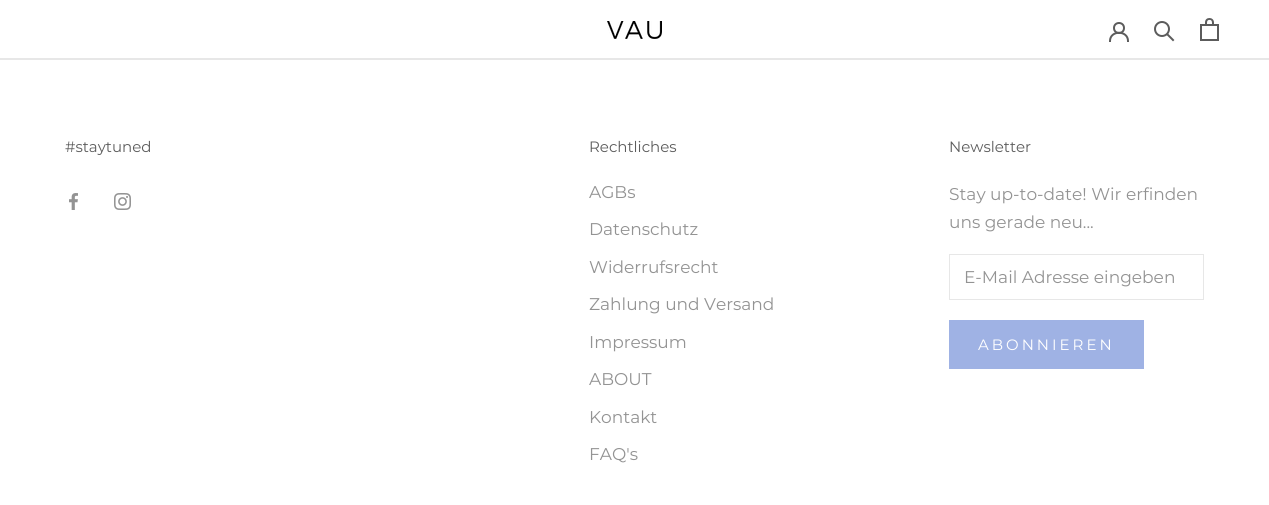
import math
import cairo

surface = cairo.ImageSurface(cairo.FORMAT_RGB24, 1269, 505)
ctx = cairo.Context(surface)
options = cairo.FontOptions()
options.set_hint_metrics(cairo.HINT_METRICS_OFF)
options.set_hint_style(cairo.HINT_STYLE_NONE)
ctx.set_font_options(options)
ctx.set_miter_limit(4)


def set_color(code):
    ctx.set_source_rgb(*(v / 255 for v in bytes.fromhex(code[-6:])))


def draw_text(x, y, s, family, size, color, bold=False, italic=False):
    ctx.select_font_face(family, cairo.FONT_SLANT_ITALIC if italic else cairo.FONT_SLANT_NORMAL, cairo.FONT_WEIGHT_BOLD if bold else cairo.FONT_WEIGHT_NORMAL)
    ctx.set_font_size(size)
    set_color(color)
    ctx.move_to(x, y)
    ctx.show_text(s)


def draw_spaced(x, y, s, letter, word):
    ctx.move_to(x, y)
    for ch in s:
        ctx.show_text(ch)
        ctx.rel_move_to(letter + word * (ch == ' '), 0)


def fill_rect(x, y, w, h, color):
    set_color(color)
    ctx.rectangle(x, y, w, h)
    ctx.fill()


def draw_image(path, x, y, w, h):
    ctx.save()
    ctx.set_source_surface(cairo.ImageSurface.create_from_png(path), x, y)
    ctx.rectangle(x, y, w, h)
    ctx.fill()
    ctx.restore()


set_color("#ffffff")
ctx.paint()
draw_image("assets/img1.png", 607, 21, 55, 18)
ctx.new_path()
ctx.move_to(1110, 41)
ctx.curve_to(1110, 30, 1128, 30, 1128, 41)
set_color("#5c5c5c")
ctx.set_line_cap(cairo.LINE_CAP_SQUARE)
ctx.stroke()
ctx.arc(1119, 28, 5, 0, 2 * math.pi)
ctx.set_line_cap(cairo.LINE_CAP_BUTT)
ctx.stroke()
ctx.new_path()
ctx.move_to(1173, 40)
ctx.line_to(1167.5, 34.5)
ctx.set_line_cap(cairo.LINE_CAP_SQUARE)
ctx.stroke()
ctx.arc(1162, 29, 7, 0, 2 * math.pi)
ctx.set_line_cap(cairo.LINE_CAP_BUTT)
ctx.stroke()
draw_image("assets/img2.png", 1200, 18, 19, 23)
fill_rect(0, 58, 1269, 2, "#e7e7e7")
draw_text(65, 152, "#staytuned", "Montserrat", 15, "#5c5c5c")
draw_image("assets/img3.png", 69, 193, 9, 17)
draw_image("assets/img4.png", 114, 193, 17, 17)
draw_text(589, 152, "Rechtliches", "Montserrat", 15, "#5c5c5c")
draw_text(589, 198, "AGBs", "Montserrat", 17, "#939393")
draw_text(589, 235, "Datenschutz", "Montserrat", 17, "#939393")
draw_text(589, 273, "Widerrufsrecht", "Montserrat", 17, "#939393")
draw_text(589, 310, "Zahlung und Versand", "Montserrat", 17, "#939393")
draw_text(589, 348, "Impressum", "Montserrat", 17, "#939393")
draw_text(589, 385, "ABOUT", "Montserrat", 17, "#939393")
draw_text(589, 423, "Kontakt", "Montserrat", 17, "#939393")
draw_text(589, 460, "FAQ's", "Montserrat", 17, "#939393")
draw_text(949, 152, "Newsletter", "Montserrat", 15, "#5c5c5c")
draw_text(949, 200, "Stay up-to-date! Wir erfinden", "Montserrat", 17, "#939393")
draw_text(949, 228, "uns gerade neu...", "Montserrat", 17, "#939393")
ctx.rectangle(949.5, 254.5, 254, 45)
set_color("#e7e7e7")
ctx.set_line_width(1)
ctx.stroke()
draw_text(964, 283, "E-Mail Adresse eingeben", "Montserrat", 17, "#939393")
ctx.rectangle(949.5, 320.5, 194, 48)
set_color("#9fb2e4")
ctx.stroke()
fill_rect(950, 321, 193, 47, "#9fb2e4")
ctx.set_font_size(15)
set_color("#ffffff")
draw_spaced(978, 350, "ABONNIEREN", 3, 0)
surface.write_to_png("output.png")
